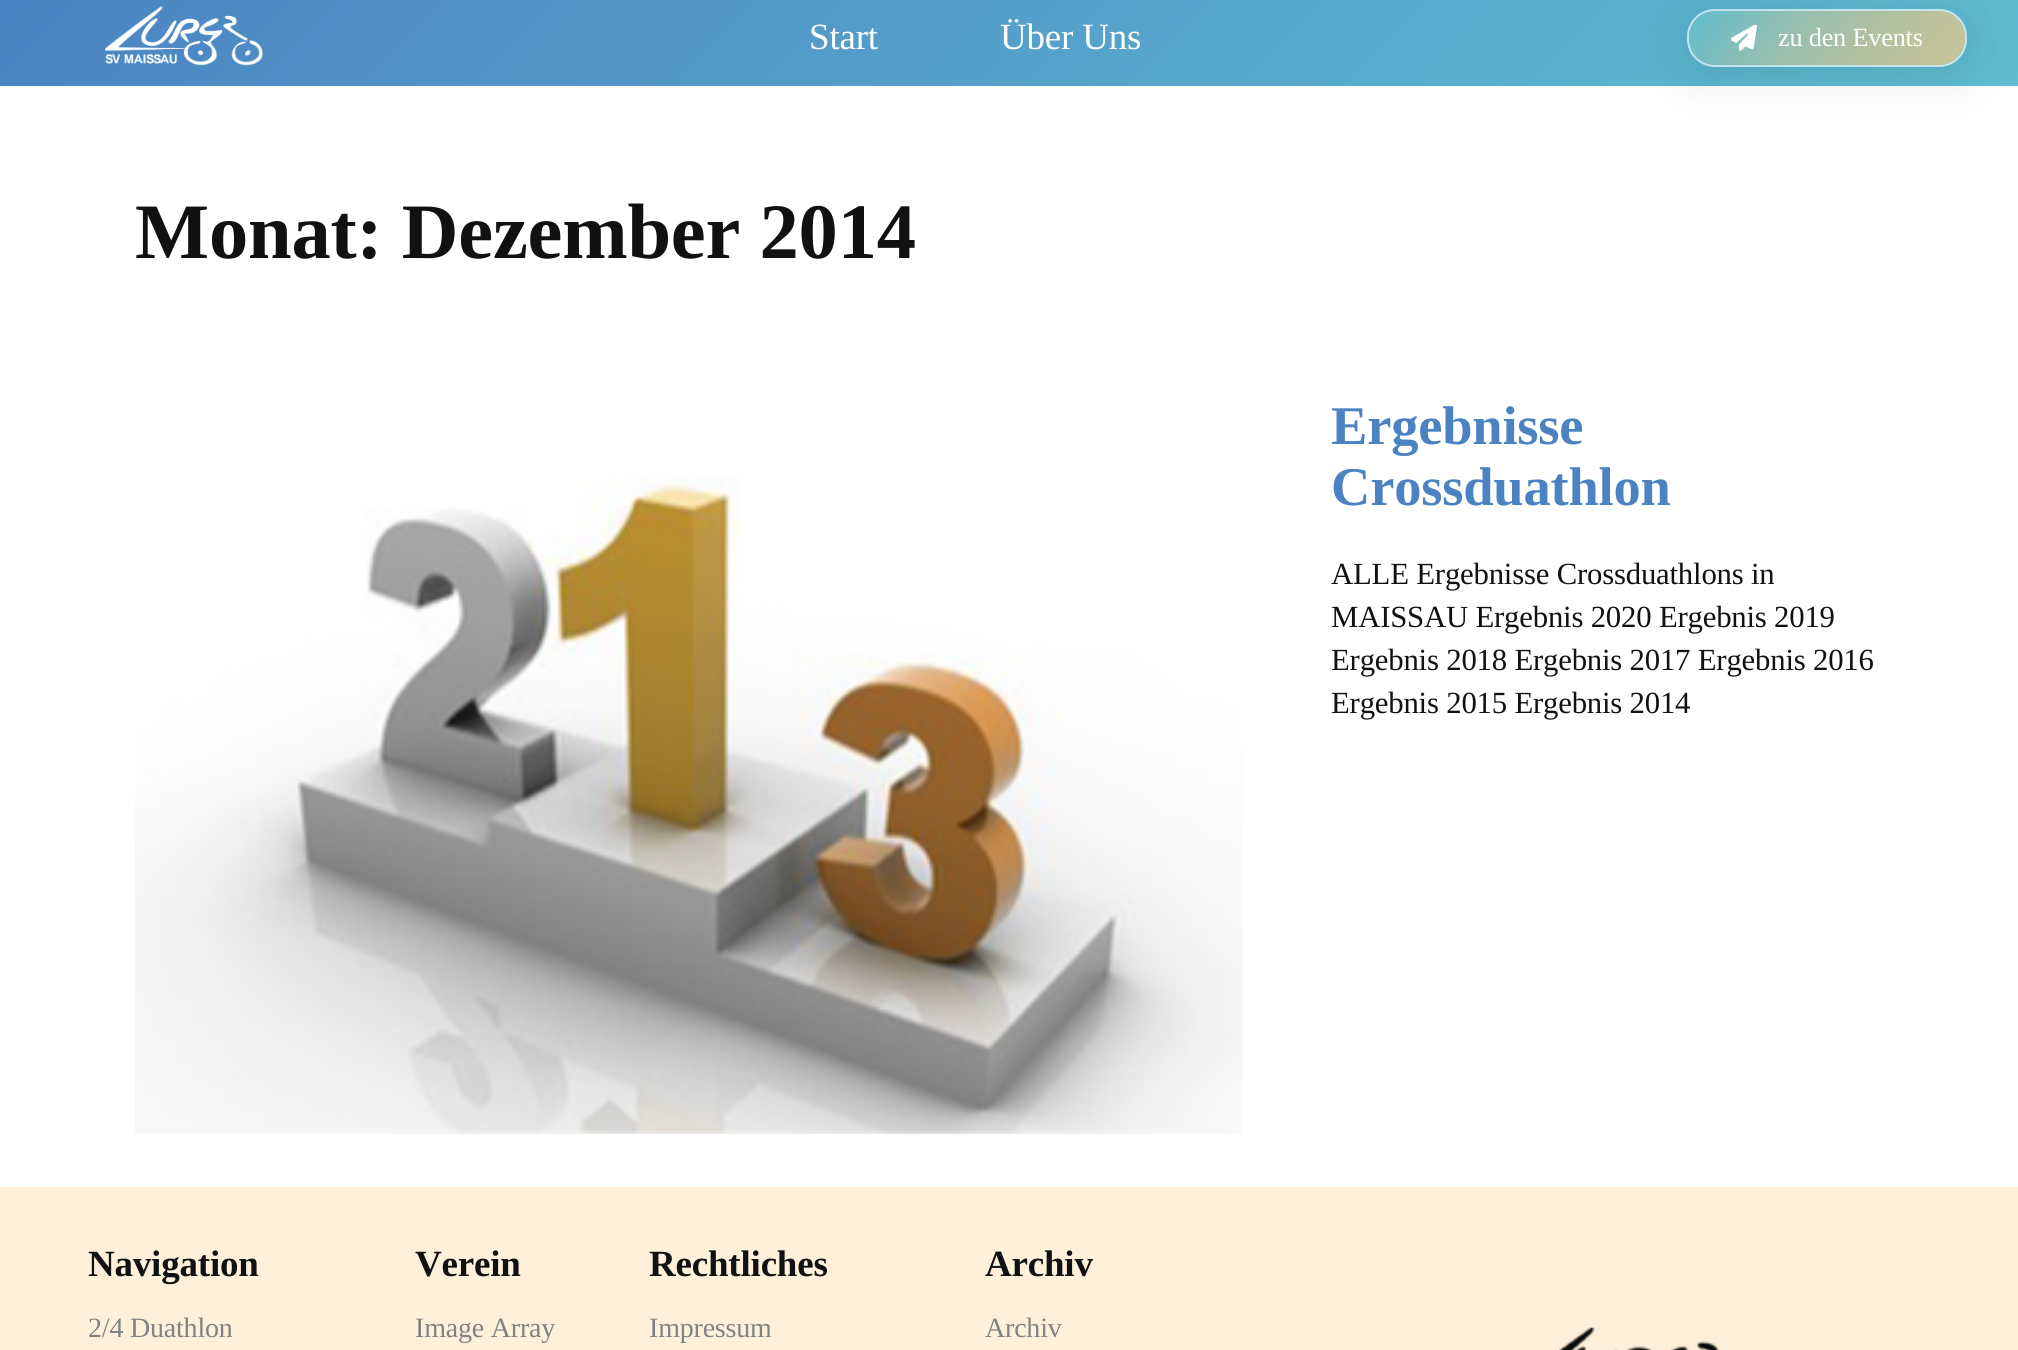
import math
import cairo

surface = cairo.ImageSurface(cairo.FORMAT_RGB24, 2018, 1350)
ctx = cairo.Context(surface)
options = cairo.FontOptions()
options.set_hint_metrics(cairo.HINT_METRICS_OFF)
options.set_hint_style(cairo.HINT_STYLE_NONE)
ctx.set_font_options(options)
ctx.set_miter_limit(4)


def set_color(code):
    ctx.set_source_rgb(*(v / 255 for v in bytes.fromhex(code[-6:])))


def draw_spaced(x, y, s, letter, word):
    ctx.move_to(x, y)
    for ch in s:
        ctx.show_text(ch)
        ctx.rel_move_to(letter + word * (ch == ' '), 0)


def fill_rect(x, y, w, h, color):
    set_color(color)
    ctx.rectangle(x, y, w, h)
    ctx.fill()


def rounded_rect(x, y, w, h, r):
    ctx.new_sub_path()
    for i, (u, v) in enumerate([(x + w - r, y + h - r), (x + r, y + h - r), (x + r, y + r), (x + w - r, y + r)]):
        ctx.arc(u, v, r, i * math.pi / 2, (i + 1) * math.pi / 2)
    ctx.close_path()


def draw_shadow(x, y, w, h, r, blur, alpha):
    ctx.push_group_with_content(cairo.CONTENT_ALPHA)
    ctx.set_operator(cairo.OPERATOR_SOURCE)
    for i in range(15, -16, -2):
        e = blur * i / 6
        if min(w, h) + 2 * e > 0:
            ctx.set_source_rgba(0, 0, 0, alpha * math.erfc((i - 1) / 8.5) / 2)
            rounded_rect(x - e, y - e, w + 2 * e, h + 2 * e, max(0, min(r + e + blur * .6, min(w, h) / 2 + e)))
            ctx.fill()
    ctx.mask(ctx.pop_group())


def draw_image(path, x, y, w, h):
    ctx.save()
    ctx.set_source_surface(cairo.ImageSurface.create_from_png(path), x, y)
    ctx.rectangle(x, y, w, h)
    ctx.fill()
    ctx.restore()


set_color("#ffffff")
ctx.paint()
gradient = cairo.LinearGradient(481, -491, 1539, 567)
gradient.add_color_stop_rgba(0, 0.294, 0.514, 0.761, 1)
gradient.add_color_stop_rgba(1, 0.369, 0.741, 0.82, 1)
ctx.set_source(gradient)
ctx.rectangle(0, 0, 2018, 86)
ctx.fill()
draw_image("assets/img1.png", 105, 6, 158, 60)
ctx.select_font_face("Liberation Serif")
ctx.set_font_size(37)
set_color("#ffffff")
draw_spaced(809, 49, "Start", -0.2, 0)
draw_spaced(1000, 49, "Über Uns", -0.2, 0)
ctx.save()
ctx.set_fill_rule(cairo.FILL_RULE_EVEN_ODD)
ctx.new_path()
ctx.move_to(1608, 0)
ctx.line_to(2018, 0)
ctx.line_to(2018, 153)
ctx.line_to(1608, 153)
ctx.close_path()
ctx.move_to(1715, 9)
ctx.line_to(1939, 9)
ctx.curve_to(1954.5, 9, 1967, 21.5, 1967, 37)
ctx.line_to(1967, 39)
ctx.curve_to(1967, 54.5, 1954.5, 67, 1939, 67)
ctx.line_to(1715, 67)
ctx.curve_to(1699.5, 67, 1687, 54.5, 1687, 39)
ctx.line_to(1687, 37)
ctx.curve_to(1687, 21.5, 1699.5, 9, 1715, 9)
ctx.close_path()
ctx.clip()
set_color("#000000")
draw_shadow(1687, 16, 280, 58, 28, 26, 0.1)
ctx.restore()
ctx.set_source_rgba(1, 1, 1, 0.27)
rounded_rect(1687, 9, 280, 58, 28)
ctx.fill()
rounded_rect(1688, 10, 278, 56, 27)
ctx.set_source_rgba(1, 1, 1, 0.49)
ctx.stroke()
gradient = cairo.LinearGradient(1728, -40, 1926, 115)
gradient.add_color_stop_rgba(0, 0.369, 0.741, 0.82, 1)
gradient.add_color_stop_rgba(1, 0.98, 0.737, 0.373, 0.54)
ctx.set_source(gradient)
rounded_rect(1689, 11, 276, 54, 26)
ctx.fill()
draw_image("assets/img2.png", 1731, 25, 26, 26)
ctx.set_font_size(26.25)
set_color("#ffffff")
draw_spaced(1778, 46, "zu den Events", -0.2, 0)
ctx.select_font_face("Liberation Serif", cairo.FONT_SLANT_NORMAL, cairo.FONT_WEIGHT_BOLD)
ctx.set_font_size(78.5)
set_color("#111111")
draw_spaced(135, 258, "Monat: Dezember 2014", -0.2, 0)
draw_image("assets/img3.png", 135, 476, 1108, 658)
ctx.set_font_size(54.5)
set_color("#4b83c2")
draw_spaced(1331, 444, "Ergebnisse", -0.2, 0)
draw_spaced(1331, 505, "Crossduathlon", -0.2, 0)
ctx.select_font_face("Liberation Serif")
ctx.set_font_size(30.75)
set_color("#111111")
draw_spaced(1331, 584, "ALLE Ergebnisse Crossduathlons in", -0.2, 0)
draw_spaced(1331, 627, "MAISSAU Ergebnis 2020 Ergebnis 2019", -0.2, 0)
draw_spaced(1331, 670, "Ergebnis 2018 Ergebnis 2017 Ergebnis 2016", -0.2, 0)
draw_spaced(1331, 713, "Ergebnis 2015 Ergebnis 2014", -0.2, 0)
fill_rect(0, 1187, 2018, 163, "#fef0db")
ctx.select_font_face("Liberation Serif", cairo.FONT_SLANT_NORMAL, cairo.FONT_WEIGHT_BOLD)
ctx.set_font_size(37)
set_color("#111111")
draw_spaced(88, 1276, "Navigation", -0.2, 0)
ctx.select_font_face("Liberation Serif")
ctx.set_font_size(28)
set_color("#828282")
draw_spaced(88, 1337, "2/4 Duathlon", -0.2, 0)
ctx.select_font_face("Liberation Serif", cairo.FONT_SLANT_NORMAL, cairo.FONT_WEIGHT_BOLD)
ctx.set_font_size(37)
set_color("#111111")
draw_spaced(415, 1276, "Verein", -0.2, 0)
ctx.select_font_face("Liberation Serif")
ctx.set_font_size(28)
set_color("#828282")
draw_spaced(415, 1337, "Image Array", -0.2, 0)
ctx.select_font_face("Liberation Serif", cairo.FONT_SLANT_NORMAL, cairo.FONT_WEIGHT_BOLD)
ctx.set_font_size(37)
set_color("#111111")
draw_spaced(649, 1276, "Rechtliches", -0.2, 0)
ctx.select_font_face("Liberation Serif")
ctx.set_font_size(28)
set_color("#828282")
draw_spaced(649, 1337, "Impressum", -0.2, 0)
ctx.select_font_face("Liberation Serif", cairo.FONT_SLANT_NORMAL, cairo.FONT_WEIGHT_BOLD)
ctx.set_font_size(37)
set_color("#111111")
draw_spaced(985, 1276, "Archiv", -0.2, 0)
ctx.select_font_face("Liberation Serif")
ctx.set_font_size(28)
set_color("#828282")
draw_spaced(985, 1337, "Archiv", -0.2, 0)
draw_image("assets/img4.png", 1558, 1327, 161, 23)
surface.write_to_png("output.png")
